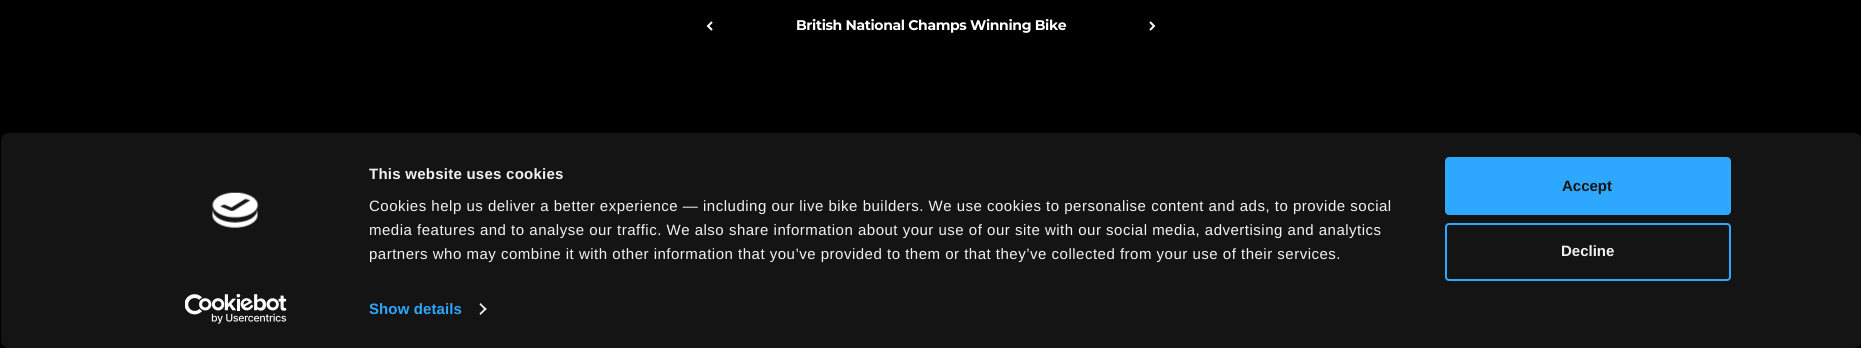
import math
import cairo

surface = cairo.ImageSurface(cairo.FORMAT_RGB24, 1861, 348)
ctx = cairo.Context(surface)
options = cairo.FontOptions()
options.set_hint_metrics(cairo.HINT_METRICS_OFF)
options.set_hint_style(cairo.HINT_STYLE_NONE)
ctx.set_font_options(options)
ctx.set_miter_limit(4)


def set_color(code):
    ctx.set_source_rgb(*(v / 255 for v in bytes.fromhex(code[-6:])))


def draw_text(x, y, s, family, size, color, bold=False, italic=False):
    ctx.select_font_face(family, cairo.FONT_SLANT_ITALIC if italic else cairo.FONT_SLANT_NORMAL, cairo.FONT_WEIGHT_BOLD if bold else cairo.FONT_WEIGHT_NORMAL)
    ctx.set_font_size(size)
    set_color(color)
    ctx.move_to(x, y)
    ctx.show_text(s)


def draw_spaced(x, y, s, letter, word):
    ctx.move_to(x, y)
    for ch in s:
        ctx.show_text(ch)
        ctx.rel_move_to(letter + word * (ch == ' '), 0)


def rounded_rect(x, y, w, h, r):
    ctx.new_sub_path()
    for i, (u, v) in enumerate([(x + w - r, y + h - r), (x + r, y + h - r), (x + r, y + r), (x + w - r, y + r)]):
        ctx.arc(u, v, r, i * math.pi / 2, (i + 1) * math.pi / 2)
    ctx.close_path()


def draw_image(path, x, y, w, h):
    ctx.save()
    ctx.set_source_surface(cairo.ImageSurface.create_from_png(path), x, y)
    ctx.rectangle(x, y, w, h)
    ctx.fill()
    ctx.restore()


set_color("#000000")
ctx.paint()
ctx.new_path()
ctx.move_to(712, 22)
ctx.line_to(708, 26)
ctx.line_to(712, 30)
set_color("#ffffff")
ctx.stroke()
ctx.select_font_face("Montserrat", cairo.FONT_SLANT_NORMAL, cairo.FONT_WEIGHT_BOLD)
ctx.set_font_size(14)
draw_spaced(796, 30, "British National Champs Winning Bike", -0.35, 0)
ctx.new_path()
ctx.move_to(1150, 30)
ctx.line_to(1154, 26)
ctx.line_to(1150, 22)
ctx.stroke()
set_color("#141414")
rounded_rect(1, 133, 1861, 215, 8)
ctx.fill()
draw_image("assets/img1.png", 212, 192, 47, 36)
draw_image("assets/img2.png", 185, 294, 102, 30)
ctx.save()
ctx.rectangle(369, 163, 1048, 103)
ctx.clip()
ctx.select_font_face("Liberation Sans", cairo.FONT_SLANT_NORMAL, cairo.FONT_WEIGHT_BOLD)
ctx.set_font_size(15)
set_color("#f2f2f2")
draw_spaced(369, 179, "This website uses cookies", 0.25, 0)
ctx.restore()
ctx.select_font_face("Liberation Sans")
ctx.set_font_size(15)
set_color("#f2f2f2")
draw_spaced(369, 211, "Cookies help us deliver a better experience — including our live bike builders. We use cookies to personalise content and ads, to provide social", 0.5, 0)
draw_spaced(369, 235, "media features and to analyse our traffic. We also share information about your use of our site with our social media, advertising and analytics", 0.5, 0)
draw_spaced(369, 259, "partners who may combine it with other information that you’ve provided to them or that they’ve collected from your use of their services.", 0.5, 0)
ctx.select_font_face("Liberation Sans", cairo.FONT_SLANT_NORMAL, cairo.FONT_WEIGHT_BOLD)
set_color("#2ea7ff")
draw_spaced(369, 314, "Show details", 0.1, 0)
set_color("#f2f2f2")
ctx.new_path()
ctx.move_to(480.5, 303)
ctx.line_to(486.5, 309)
ctx.line_to(485.5, 310.5)
ctx.line_to(479.5, 304.5)
ctx.close_path()
ctx.fill()
ctx.new_path()
ctx.move_to(485.5, 307.5)
ctx.line_to(486.5, 309)
ctx.line_to(480.5, 315)
ctx.line_to(479.5, 313.5)
ctx.close_path()
ctx.fill()
set_color("#2ea7ff")
rounded_rect(1446, 158, 284, 56, 3)
ctx.fill_preserve()
ctx.stroke()
draw_text(1562, 191, "Accept", "Liberation Sans", 15, "#141414", bold=True)
rounded_rect(1446, 224, 284, 56, 3)
set_color("#2ea7ff")
ctx.stroke()
draw_text(1561, 256, "Decline", "Liberation Sans", 15, "#f2f2f2", bold=True)
surface.write_to_png("output.png")
